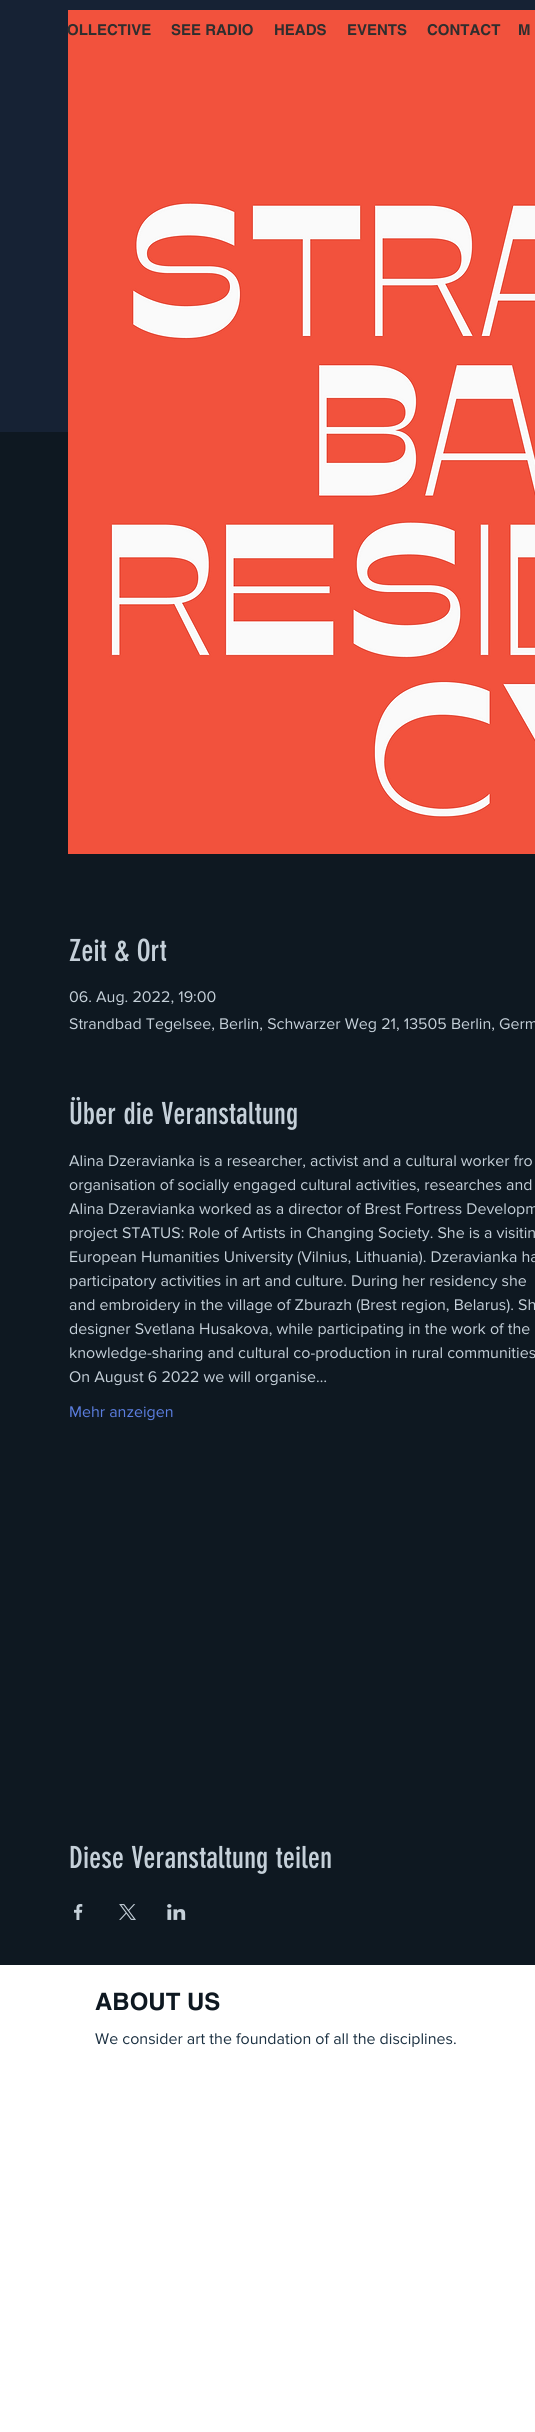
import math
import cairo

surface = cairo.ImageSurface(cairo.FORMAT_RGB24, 535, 2432)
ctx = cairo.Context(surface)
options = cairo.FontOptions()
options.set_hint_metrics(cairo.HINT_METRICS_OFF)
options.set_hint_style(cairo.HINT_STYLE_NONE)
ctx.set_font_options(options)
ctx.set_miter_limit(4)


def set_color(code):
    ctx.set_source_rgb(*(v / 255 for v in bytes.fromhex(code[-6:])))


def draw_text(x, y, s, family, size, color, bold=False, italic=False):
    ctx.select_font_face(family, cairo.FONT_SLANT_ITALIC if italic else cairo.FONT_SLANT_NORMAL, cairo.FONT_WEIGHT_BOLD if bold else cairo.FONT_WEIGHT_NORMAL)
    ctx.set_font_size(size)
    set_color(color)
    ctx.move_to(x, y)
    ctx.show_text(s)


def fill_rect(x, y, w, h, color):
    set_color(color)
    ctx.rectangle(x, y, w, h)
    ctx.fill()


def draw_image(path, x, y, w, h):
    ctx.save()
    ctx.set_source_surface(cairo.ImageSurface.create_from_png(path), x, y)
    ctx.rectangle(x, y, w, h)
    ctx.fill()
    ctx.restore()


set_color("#0e1821")
ctx.paint()
fill_rect(0, 0, 535, 432, "#162234")
draw_image("assets/img1.png", 68, 10, 467, 844)
draw_text(67, 35, "OLLECTIVE", "helvetica", 15, "#2f2e2e", bold=True)
draw_text(171, 35, "SEE RADIO", "helvetica", 15, "#2f2e2e", bold=True)
draw_text(274, 35, "HEADS", "helvetica", 15, "#2f2e2e", bold=True)
draw_text(347, 35, "EVENTS", "helvetica", 15, "#2f2e2e", bold=True)
draw_text(427, 35, "CONTACT", "helvetica", 15, "#2f2e2e", bold=True)
draw_text(518, 35, "M", "helvetica", 15, "#2f2e2e", bold=True)
draw_text(69, 961, "Zeit & Ort", "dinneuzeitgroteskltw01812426", 30, "#c5d0d9")
draw_text(69, 1002, "06. Aug. 2022, 19:00", "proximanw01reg", 16, "#c5d0d9")
draw_text(69, 1029, "Strandbad Tegelsee, Berlin, Schwarzer Weg 21, 13505 Berlin, Germ", "proximanw01reg", 16, "#c5d0d9")
draw_text(69, 1124, "Über die Veranstaltung", "dinneuzeitgroteskltw01812426", 30, "#c5d0d9")
draw_text(69, 1166, "Alina Dzeravianka is a researcher, activist and a cultural worker fro", "proximanw01reg", 16, "#c5d0d9")
draw_text(69, 1190, "organisation of socially engaged cultural activities, researches and", "proximanw01reg", 16, "#c5d0d9")
draw_text(69, 1214, "Alina Dzeravianka worked as a director of Brest Fortress Developm", "proximanw01reg", 16, "#c5d0d9")
draw_text(69, 1238, "project STATUS: Role of Artists in Changing Society. She is a visitin", "proximanw01reg", 16, "#c5d0d9")
draw_text(69, 1262, "European Humanities University (Vilnius, Lithuania). Dzeravianka ha", "proximanw01reg", 16, "#c5d0d9")
draw_text(69, 1286, "participatory activities in art and culture. During her residency she", "proximanw01reg", 16, "#c5d0d9")
draw_text(69, 1310, "and embroidery in the village of Zburazh (Brest region, Belarus). Sh", "proximanw01reg", 16, "#c5d0d9")
draw_text(69, 1334, "designer Svetlana Husakova, while participating in the work of the", "proximanw01reg", 16, "#c5d0d9")
draw_text(69, 1358, "knowledge-sharing and cultural co-production in rural communities", "proximanw01reg", 16, "#c5d0d9")
draw_text(69, 1382, "On August 6 2022 we will organise…", "proximanw01reg", 16, "#c5d0d9")
draw_text(69, 1417, "Mehr anzeigen", "proximanw01reg", 16, "#5b7ee0")
draw_text(69, 1868, "Diese Veranstaltung teilen", "dinneuzeitgroteskltw01812426", 30, "#c5d0d9")
draw_image("assets/img2.png", 74, 1904, 9, 16)
draw_image("assets/img3.png", 119, 1904, 17, 16)
draw_image("assets/img4.png", 167, 1904, 19, 16)
fill_rect(0, 1965, 535, 467, "#ffffff")
draw_text(95, 2010, "ABOUT US", "helvetica", 24, "#0e1821", bold=True)
draw_text(95, 2044, "We consider art the foundation of all the disciplines.", "proximanw01reg", 16, "#1c3142")
surface.write_to_png("output.png")
